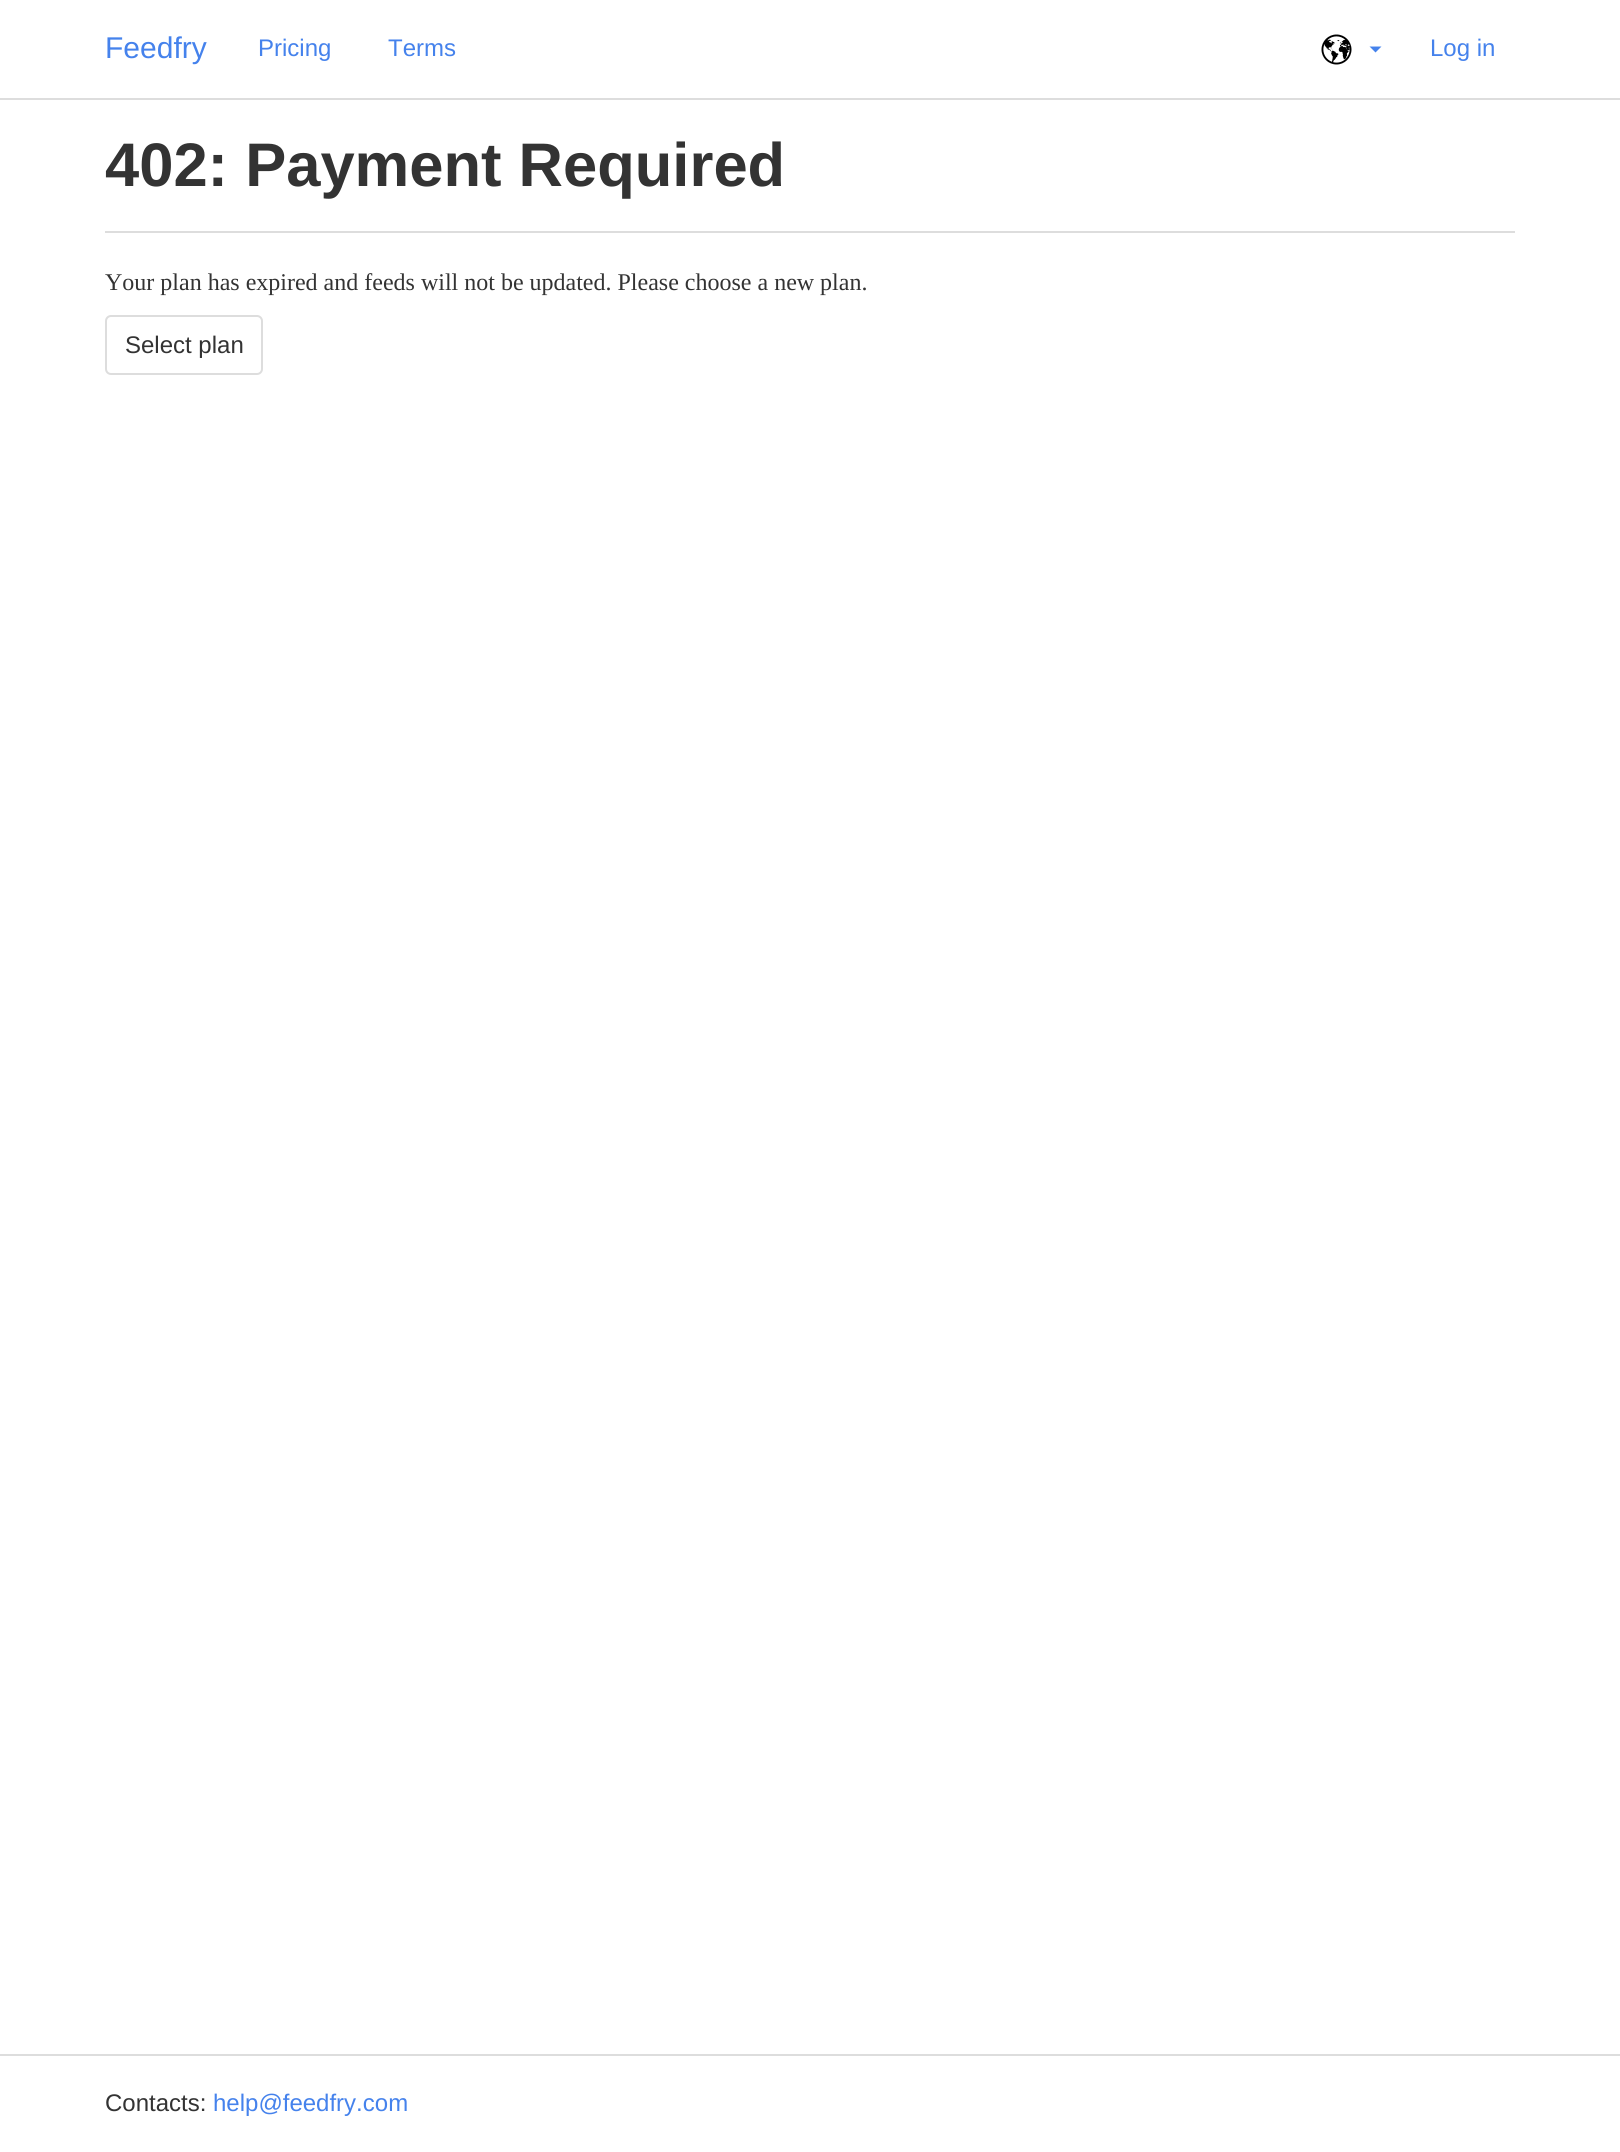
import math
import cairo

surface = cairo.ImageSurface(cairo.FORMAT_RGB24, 1620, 2152)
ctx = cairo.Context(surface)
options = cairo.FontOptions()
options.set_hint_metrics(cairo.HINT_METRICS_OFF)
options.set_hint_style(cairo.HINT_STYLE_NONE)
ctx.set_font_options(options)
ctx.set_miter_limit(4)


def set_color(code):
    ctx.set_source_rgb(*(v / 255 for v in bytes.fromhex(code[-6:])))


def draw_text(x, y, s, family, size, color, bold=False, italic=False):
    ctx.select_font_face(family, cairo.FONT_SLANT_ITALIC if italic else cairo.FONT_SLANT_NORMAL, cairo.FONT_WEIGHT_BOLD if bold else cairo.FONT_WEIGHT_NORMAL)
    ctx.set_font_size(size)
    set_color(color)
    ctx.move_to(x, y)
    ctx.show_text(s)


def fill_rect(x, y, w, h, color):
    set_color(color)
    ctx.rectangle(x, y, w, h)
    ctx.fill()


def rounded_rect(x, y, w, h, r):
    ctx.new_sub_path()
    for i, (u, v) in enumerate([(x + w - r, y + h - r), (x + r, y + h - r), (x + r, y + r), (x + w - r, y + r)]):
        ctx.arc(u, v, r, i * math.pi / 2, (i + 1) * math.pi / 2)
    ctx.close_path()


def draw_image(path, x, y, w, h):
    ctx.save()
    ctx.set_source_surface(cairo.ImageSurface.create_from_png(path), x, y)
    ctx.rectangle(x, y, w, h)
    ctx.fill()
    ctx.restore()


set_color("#ffffff")
ctx.paint()
fill_rect(0, 98, 1620, 2, "#dddddd")
draw_text(105, 58, "Feedfry", "Liberation Sans", 30, "#4582ec")
draw_text(258, 56, "Pricing", "Liberation Sans", 24, "#4582ec")
draw_text(388, 56, "Terms", "Liberation Sans", 24, "#4582ec")
draw_image("assets/img1.png", 1321, 34, 31, 31)
ctx.new_path()
ctx.move_to(1369.5, 46.5)
ctx.line_to(1381.5, 46.5)
ctx.line_to(1375.5, 52.5)
ctx.close_path()
ctx.fill()
draw_text(1430, 56, "Log in", "Liberation Sans", 24, "#4582ec")
fill_rect(105, 231, 1410, 2, "#dddddd")
draw_text(105, 186, "402: Payment Required", "Liberation Sans", 61.5, "#333333", bold=True)
draw_text(105, 290, "Your plan has expired and feeds will not be updated. Please choose a new plan.", "Liberation Serif", 24, "#333333")
rounded_rect(106, 316, 156, 58, 5)
set_color("#dddddd")
ctx.stroke()
draw_text(125, 353, "Select plan", "Liberation Sans", 24, "#333333")
fill_rect(0, 2054, 1620, 2, "#dddddd")
draw_text(105, 2111, "Contacts:", "Liberation Sans", 24, "#333333")
draw_text(213, 2111, "help@feedfry.com", "Liberation Sans", 24, "#4582ec")
surface.write_to_png("output.png")
